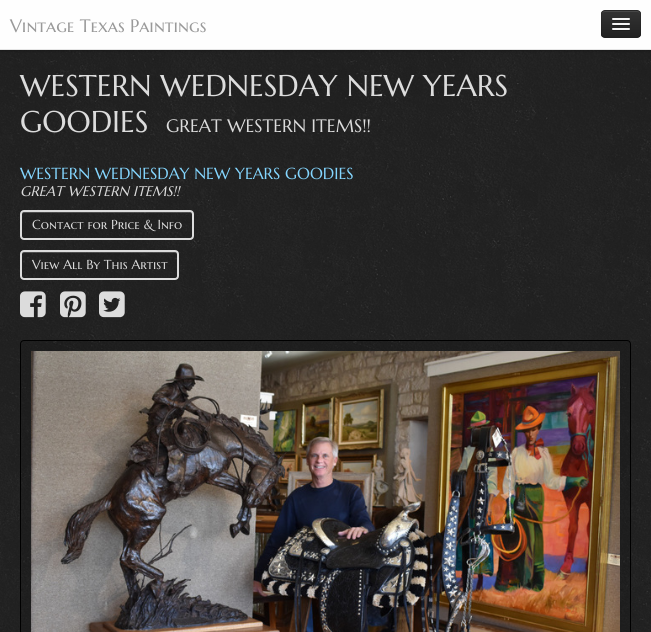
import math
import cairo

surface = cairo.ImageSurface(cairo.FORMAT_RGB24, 651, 632)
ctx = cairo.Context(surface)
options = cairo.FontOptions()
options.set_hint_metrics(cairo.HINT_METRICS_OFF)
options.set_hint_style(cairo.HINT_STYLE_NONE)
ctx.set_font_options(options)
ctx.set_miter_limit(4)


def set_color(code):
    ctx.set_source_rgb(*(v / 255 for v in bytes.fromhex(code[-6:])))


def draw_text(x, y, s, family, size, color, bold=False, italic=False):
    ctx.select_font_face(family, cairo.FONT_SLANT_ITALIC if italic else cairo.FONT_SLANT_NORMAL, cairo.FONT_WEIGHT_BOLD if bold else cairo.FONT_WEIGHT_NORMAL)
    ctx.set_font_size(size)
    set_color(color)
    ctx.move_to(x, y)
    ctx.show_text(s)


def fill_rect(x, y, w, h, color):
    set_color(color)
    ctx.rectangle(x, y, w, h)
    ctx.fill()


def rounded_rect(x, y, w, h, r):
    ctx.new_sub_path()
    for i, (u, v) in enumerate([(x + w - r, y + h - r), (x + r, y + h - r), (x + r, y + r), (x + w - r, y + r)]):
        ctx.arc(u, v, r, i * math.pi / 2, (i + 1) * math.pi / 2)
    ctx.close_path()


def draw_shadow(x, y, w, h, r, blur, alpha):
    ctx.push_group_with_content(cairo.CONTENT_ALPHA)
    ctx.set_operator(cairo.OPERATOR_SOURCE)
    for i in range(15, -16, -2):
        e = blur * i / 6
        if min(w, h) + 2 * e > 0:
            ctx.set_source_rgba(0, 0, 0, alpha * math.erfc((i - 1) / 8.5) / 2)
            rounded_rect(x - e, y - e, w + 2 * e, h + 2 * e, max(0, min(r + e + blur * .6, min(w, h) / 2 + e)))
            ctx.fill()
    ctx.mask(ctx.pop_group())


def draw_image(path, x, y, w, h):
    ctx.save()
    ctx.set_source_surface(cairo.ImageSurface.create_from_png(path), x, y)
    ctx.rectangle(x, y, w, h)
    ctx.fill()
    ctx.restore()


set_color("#ffffff")
ctx.paint()
draw_image("assets/img1.png", 0, 50, 651, 582)
set_color("#000000")
draw_shadow(0, 1, 651, 50, 0, 1.5, 0.25)
fill_rect(0, 0, 651, 49, "#fefefe")
fill_rect(0, 49, 651, 1, "#e5e5e5")
draw_text(10, 32, "Vintage Texas Paintings", "Marcellus SC", 18, "#999999")
set_color("#2c2c2c")
rounded_rect(601, 10, 40, 28, 4)
ctx.fill()
ctx.save()
rounded_rect(601, 10, 40, 28, 4)
ctx.clip()
gradient = cairo.LinearGradient(621, 11, 621, 37)
gradient.add_color_stop_rgba(0, 0.2, 0.2, 0.2, 1)
gradient.add_color_stop_rgba(1, 0.133, 0.133, 0.133, 1)
ctx.set_source(gradient)
ctx.rectangle(601, 11, 40, 26)
ctx.fill()
ctx.restore()
set_color("#474747")
ctx.new_path()
ctx.move_to(605, 12)
ctx.line_to(637, 12)
ctx.curve_to(639, 12, 640, 13, 640, 15)
ctx.curve_to(640, 10, 636, 11, 631.5, 11)
ctx.line_to(610.5, 11)
ctx.curve_to(606, 11, 602, 10, 602, 15)
ctx.curve_to(602, 13, 603, 12, 605, 12)
ctx.close_path()
ctx.fill()
ctx.new_path()
ctx.move_to(639.5, 36.5)
ctx.curve_to(639, 37, 638, 37.5, 637, 37.5)
ctx.line_to(605, 37.5)
ctx.curve_to(604, 37.5, 603, 37, 602.5, 36.5)
ctx.set_source_rgba(0, 0, 0, 0.25)
ctx.set_line_width(1)
ctx.stroke()
ctx.new_path()
ctx.move_to(602.5, 36.5)
ctx.curve_to(602, 36, 601.5, 35, 601.5, 34)
ctx.line_to(601.5, 14)
ctx.curve_to(601.5, 13, 602, 12, 602.5, 11.5)
ctx.curve_to(603, 11, 604, 10.5, 605, 10.5)
ctx.line_to(637, 10.5)
ctx.curve_to(638, 10.5, 639, 11, 639.5, 11.5)
ctx.curve_to(640, 12, 640.5, 13, 640.5, 14)
ctx.line_to(640.5, 34)
ctx.curve_to(640.5, 35, 640, 36, 639.5, 36.5)
ctx.set_source_rgba(0, 0, 0, 0.1)
ctx.stroke()
set_color("#222222")
ctx.new_path()
ctx.move_to(612, 19.5)
ctx.curve_to(611, 21.5, 615.5, 21, 615.5, 21)
ctx.line_to(626.5, 21)
ctx.curve_to(626.5, 21, 631, 21.5, 630, 19.5)
ctx.curve_to(629, 20.5, 622.5, 20, 621, 20)
ctx.curve_to(619.5, 20, 613, 20.5, 612, 19.5)
ctx.close_path()
ctx.fill()
set_color("#f5f5f5")
rounded_rect(612, 18, 18, 2, 1)
ctx.fill()
set_color("#202020")
ctx.new_path()
ctx.move_to(612, 24.5)
ctx.curve_to(611, 26.5, 615.5, 26, 615.5, 26)
ctx.line_to(626.5, 26)
ctx.curve_to(626.5, 26, 631, 26.5, 630, 24.5)
ctx.curve_to(629, 25.5, 622.5, 25, 621, 25)
ctx.curve_to(619.5, 25, 613, 25.5, 612, 24.5)
ctx.close_path()
ctx.fill()
set_color("#f5f5f5")
rounded_rect(612, 23, 18, 2, 1)
ctx.fill()
set_color("#1d1d1d")
ctx.new_path()
ctx.move_to(612, 29.5)
ctx.curve_to(611, 31.5, 615.5, 31, 615.5, 31)
ctx.line_to(626.5, 31)
ctx.curve_to(626.5, 31, 631, 31.5, 630, 29.5)
ctx.curve_to(629, 30.5, 622.5, 30, 621, 30)
ctx.curve_to(619.5, 30, 613, 30.5, 612, 29.5)
ctx.close_path()
ctx.fill()
set_color("#f5f5f5")
rounded_rect(612, 28, 18, 2, 1)
ctx.fill()
draw_text(20, 96, "WESTERN WEDNESDAY NEW YEARS", "Marcellus SC", 30, "#dcdcdc")
draw_text(20, 132, "GOODIES", "Marcellus SC", 30, "#dcdcdc")
draw_text(166, 132, "GREAT WESTERN ITEMS!!", "Marcellus SC", 18, "#dcdcdc")
draw_text(20, 179, "WESTERN WEDNESDAY NEW YEARS GOODIES", "Marcellus SC", 16, "#84d6ff")
draw_text(20, 196, "GREAT WESTERN ITEMS!!", "Marcellus SC", 14, "#dcdcdc", italic=True)
ctx.set_source_rgba(1, 1, 1, 0.2)
ctx.new_path()
ctx.move_to(24, 213)
ctx.line_to(190, 213)
ctx.curve_to(191, 213, 192, 214, 192, 215)
ctx.curve_to(192, 214, 192, 212, 190, 212)
ctx.line_to(24, 212)
ctx.curve_to(22, 212, 22, 214, 22, 215)
ctx.curve_to(22, 214, 23, 213, 24, 213)
ctx.close_path()
ctx.fill()
rounded_rect(21, 211, 172, 28, 3)
set_color("#dcdcdc")
ctx.set_line_width(2)
ctx.stroke()
draw_text(32, 229, "Contact for Price & Info", "Marcellus SC", 13, "#dcdcdc")
ctx.set_source_rgba(1, 1, 1, 0.2)
ctx.new_path()
ctx.move_to(24, 253)
ctx.line_to(175, 253)
ctx.curve_to(176, 253, 177, 254, 177, 255)
ctx.curve_to(177, 254, 177, 252, 175, 252)
ctx.line_to(23, 252)
ctx.curve_to(22, 253, 22, 254, 22, 255)
ctx.curve_to(22, 254, 23, 253, 24, 253)
ctx.close_path()
ctx.fill()
rounded_rect(21, 251, 157, 28, 3)
set_color("#dcdcdc")
ctx.stroke()
draw_text(32, 269, "View All By This Artist", "Marcellus SC", 13, "#dcdcdc")
draw_image("assets/img2.png", 20, 291, 26, 27)
draw_image("assets/img3.png", 60, 291, 26, 27)
draw_image("assets/img4.png", 99, 291, 26, 27)
ctx.set_source_rgba(0, 0, 0, 0.1)
rounded_rect(20.5, 340.5, 610, 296, 3.5)
ctx.fill_preserve()
set_color("#000000")
ctx.set_line_width(1)
ctx.stroke()
draw_image("assets/img5.png", 31, 351, 589, 281)
surface.write_to_png("output.png")
